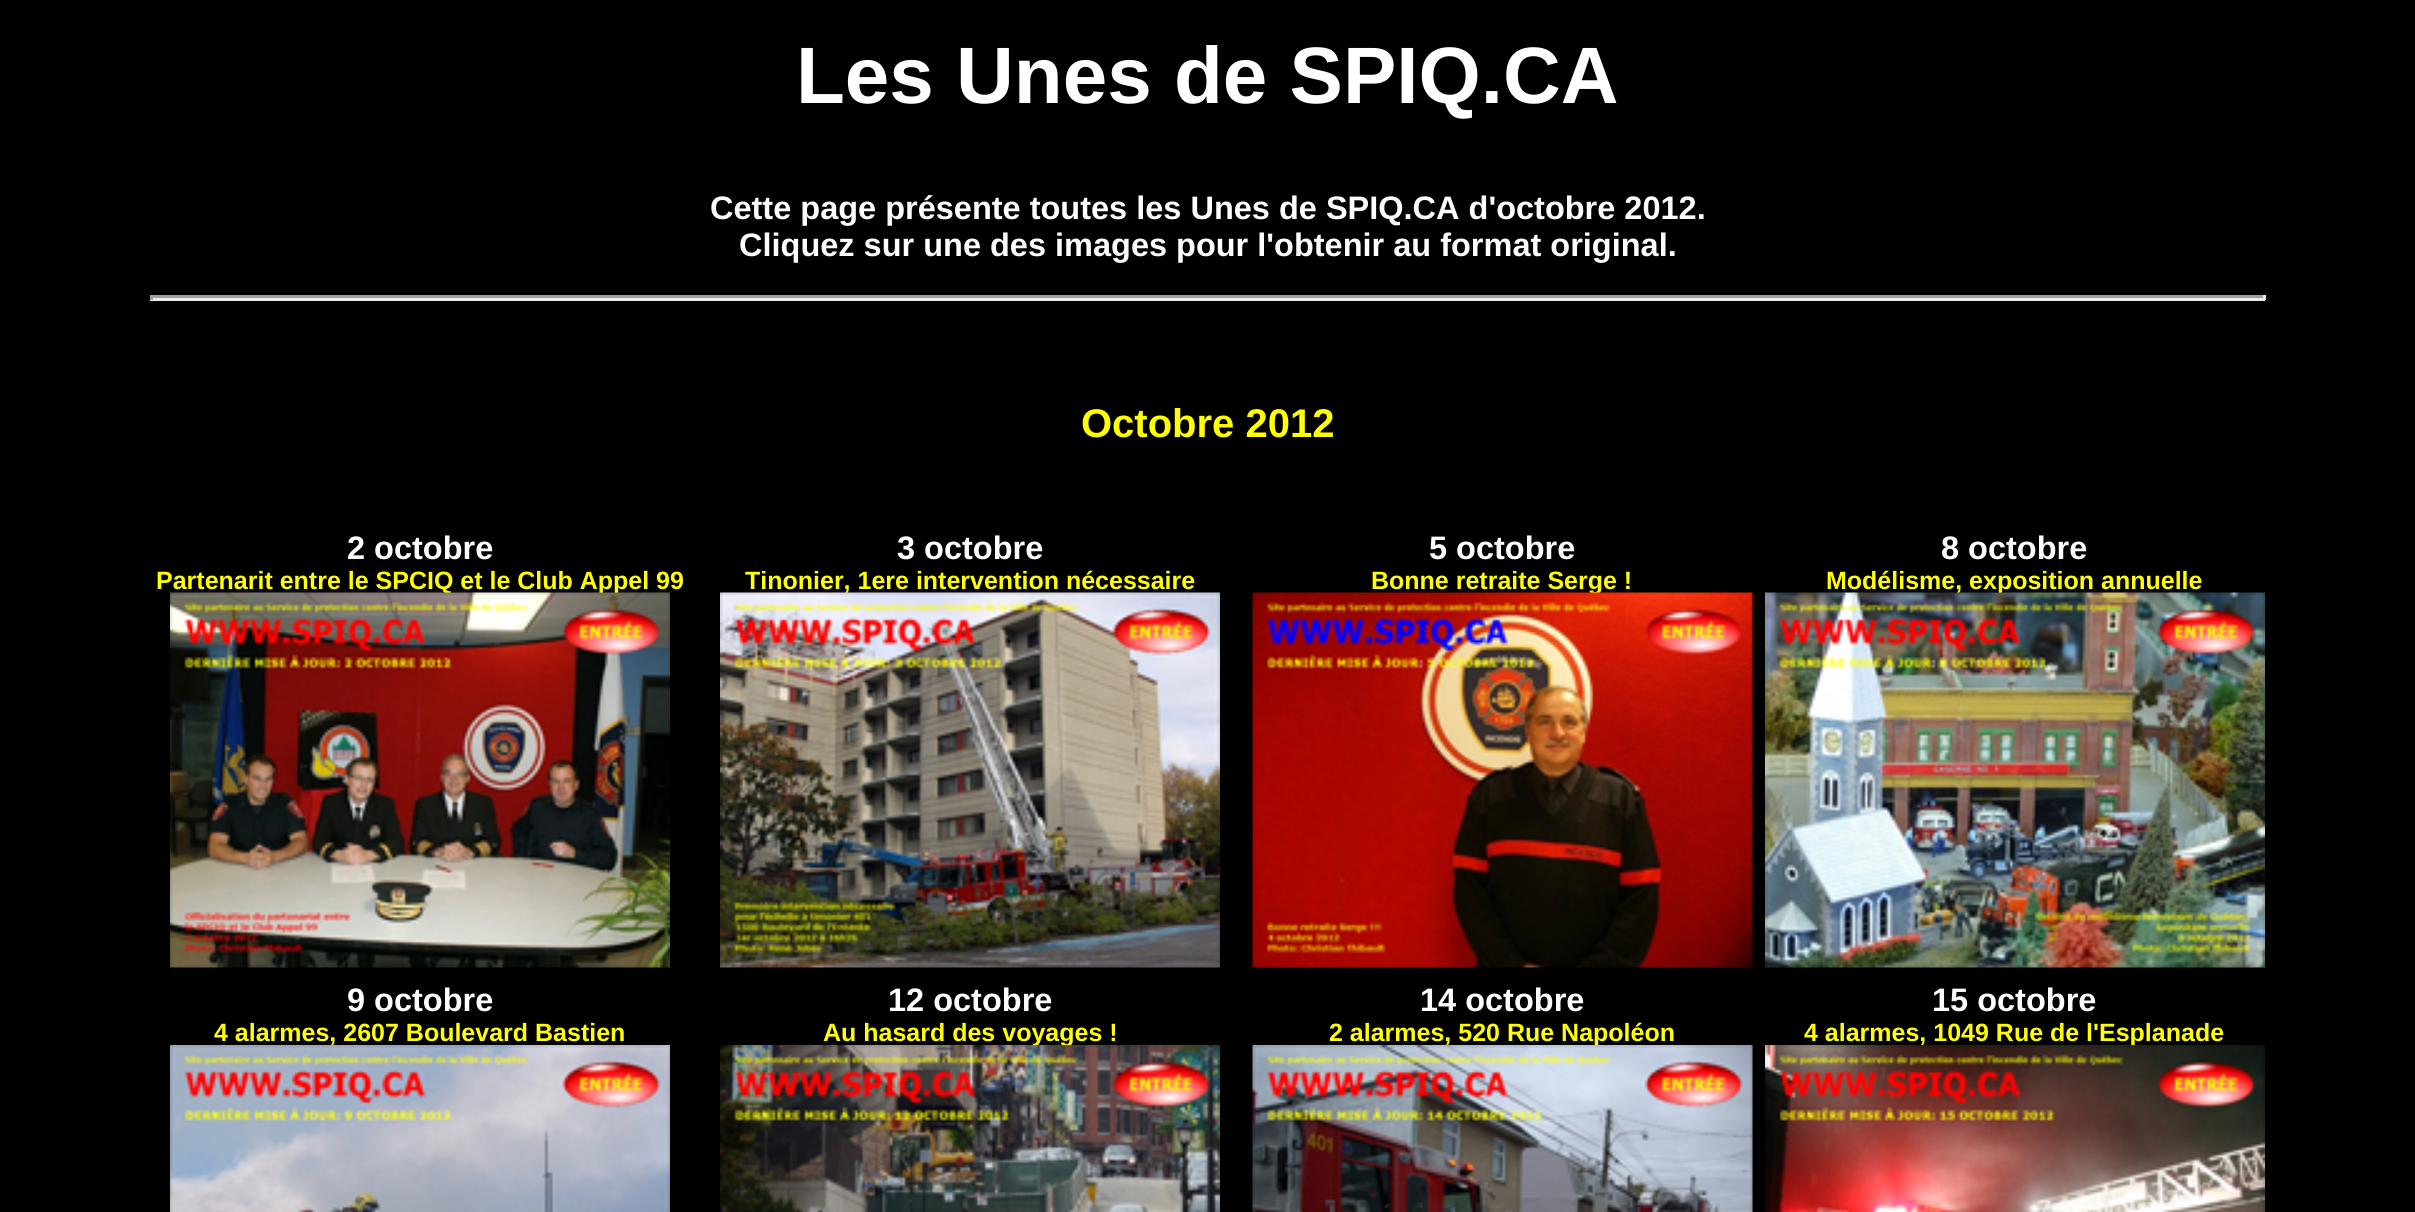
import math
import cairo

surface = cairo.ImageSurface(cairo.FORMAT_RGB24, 2415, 1212)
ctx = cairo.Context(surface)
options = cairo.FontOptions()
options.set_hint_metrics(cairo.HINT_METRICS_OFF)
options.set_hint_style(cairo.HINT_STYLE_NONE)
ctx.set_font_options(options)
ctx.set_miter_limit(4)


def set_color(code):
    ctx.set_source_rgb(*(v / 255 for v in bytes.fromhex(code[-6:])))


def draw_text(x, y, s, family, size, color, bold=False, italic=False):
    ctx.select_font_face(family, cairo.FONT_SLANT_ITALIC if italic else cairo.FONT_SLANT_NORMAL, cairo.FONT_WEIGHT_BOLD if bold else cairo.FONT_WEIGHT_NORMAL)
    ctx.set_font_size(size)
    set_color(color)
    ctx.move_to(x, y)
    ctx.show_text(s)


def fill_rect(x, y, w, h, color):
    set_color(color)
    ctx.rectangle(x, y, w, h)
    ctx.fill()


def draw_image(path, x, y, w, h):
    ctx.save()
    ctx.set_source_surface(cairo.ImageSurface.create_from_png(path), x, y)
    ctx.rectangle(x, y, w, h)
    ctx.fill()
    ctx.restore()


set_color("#000000")
ctx.paint()
draw_text(796, 103, "Les Unes de SPIQ.CA", "Liberation Sans", 80, "#ffffff", bold=True)
draw_text(710, 219, "Cette page présente toutes les Unes de SPIQ.CA d'octobre 2012.", "Liberation Sans", 32.5, "#ffffff", bold=True)
draw_text(739, 256, "Cliquez sur une des images pour l'obtenir au format original.", "Liberation Sans", 32.5, "#ffffff", bold=True)
fill_rect(150, 295, 2115, 3, "#9f9f9f")
fill_rect(2263, 295, 3, 5, "#eeeeee")
fill_rect(150, 298, 2115, 3, "#eeeeee")
fill_rect(150, 295, 3, 5, "#9f9f9f")
draw_text(1081, 437, "Octobre 2012", "Liberation Sans", 40, "#ffff00", bold=True)
draw_text(347, 559, "2 octobre", "Liberation Sans", 32.5, "#ffffff", bold=True)
draw_text(156, 589, "Partenarit entre le SPCIQ et le Club Appel 99", "Liberation Sans", 25, "#ffff00", bold=True)
draw_image("assets/img1.png", 170, 592, 500, 376)
draw_text(897, 559, "3 octobre", "Liberation Sans", 32.5, "#ffffff", bold=True)
draw_text(745, 589, "Tinonier, 1ere intervention nécessaire", "Liberation Sans", 25, "#ffff00", bold=True)
draw_image("assets/img2.png", 720, 592, 500, 376)
draw_text(1429, 559, "5 octobre", "Liberation Sans", 32.5, "#ffffff", bold=True)
draw_text(1371, 589, "Bonne retraite Serge !", "Liberation Sans", 25, "#ffff00", bold=True)
draw_image("assets/img3.png", 1252, 592, 501, 376)
draw_text(1941, 559, "8 octobre", "Liberation Sans", 32.5, "#ffffff", bold=True)
draw_text(1826, 589, "Modélisme, exposition annuelle", "Liberation Sans", 25, "#ffff00", bold=True)
draw_image("assets/img4.png", 1765, 592, 500, 376)
draw_text(347, 1011, "9 octobre", "Liberation Sans", 32.5, "#ffffff", bold=True)
draw_text(214, 1041, "4 alarmes, 2607 Boulevard Bastien", "Liberation Sans", 25, "#ffff00", bold=True)
draw_image("assets/img5.png", 170, 1045, 500, 167)
draw_text(888, 1011, "12 octobre", "Liberation Sans", 32.5, "#ffffff", bold=True)
draw_text(823, 1041, "Au hasard des voyages !", "Liberation Sans", 25, "#ffff00", bold=True)
draw_image("assets/img6.png", 720, 1045, 500, 167)
draw_text(1420, 1011, "14 octobre", "Liberation Sans", 32.5, "#ffffff", bold=True)
draw_text(1329, 1041, "2 alarmes, 520 Rue Napoléon", "Liberation Sans", 25, "#ffff00", bold=True)
draw_image("assets/img7.png", 1252, 1045, 501, 167)
draw_text(1932, 1011, "15 octobre", "Liberation Sans", 32.5, "#ffffff", bold=True)
draw_text(1804, 1041, "4 alarmes, 1049 Rue de l'Esplanade", "Liberation Sans", 25, "#ffff00", bold=True)
draw_image("assets/img8.png", 1765, 1045, 500, 167)
surface.write_to_png("output.png")
